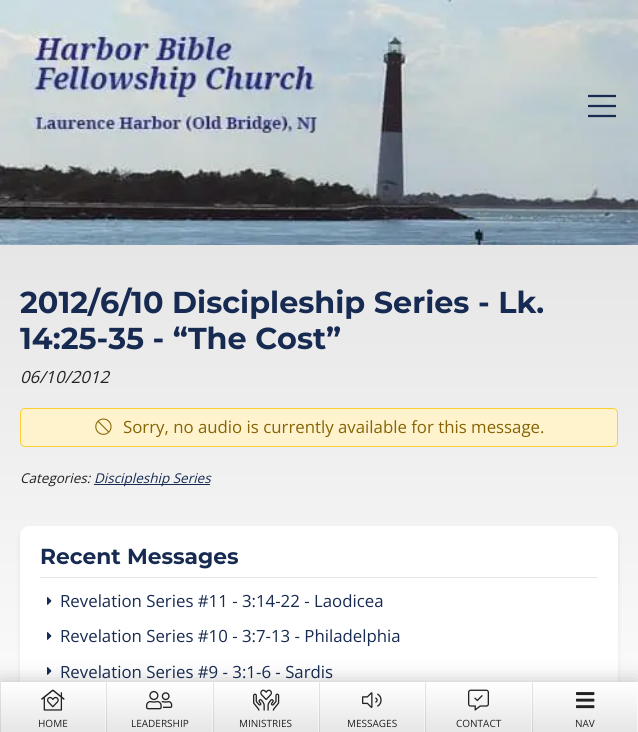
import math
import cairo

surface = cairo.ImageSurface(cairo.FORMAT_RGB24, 638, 732)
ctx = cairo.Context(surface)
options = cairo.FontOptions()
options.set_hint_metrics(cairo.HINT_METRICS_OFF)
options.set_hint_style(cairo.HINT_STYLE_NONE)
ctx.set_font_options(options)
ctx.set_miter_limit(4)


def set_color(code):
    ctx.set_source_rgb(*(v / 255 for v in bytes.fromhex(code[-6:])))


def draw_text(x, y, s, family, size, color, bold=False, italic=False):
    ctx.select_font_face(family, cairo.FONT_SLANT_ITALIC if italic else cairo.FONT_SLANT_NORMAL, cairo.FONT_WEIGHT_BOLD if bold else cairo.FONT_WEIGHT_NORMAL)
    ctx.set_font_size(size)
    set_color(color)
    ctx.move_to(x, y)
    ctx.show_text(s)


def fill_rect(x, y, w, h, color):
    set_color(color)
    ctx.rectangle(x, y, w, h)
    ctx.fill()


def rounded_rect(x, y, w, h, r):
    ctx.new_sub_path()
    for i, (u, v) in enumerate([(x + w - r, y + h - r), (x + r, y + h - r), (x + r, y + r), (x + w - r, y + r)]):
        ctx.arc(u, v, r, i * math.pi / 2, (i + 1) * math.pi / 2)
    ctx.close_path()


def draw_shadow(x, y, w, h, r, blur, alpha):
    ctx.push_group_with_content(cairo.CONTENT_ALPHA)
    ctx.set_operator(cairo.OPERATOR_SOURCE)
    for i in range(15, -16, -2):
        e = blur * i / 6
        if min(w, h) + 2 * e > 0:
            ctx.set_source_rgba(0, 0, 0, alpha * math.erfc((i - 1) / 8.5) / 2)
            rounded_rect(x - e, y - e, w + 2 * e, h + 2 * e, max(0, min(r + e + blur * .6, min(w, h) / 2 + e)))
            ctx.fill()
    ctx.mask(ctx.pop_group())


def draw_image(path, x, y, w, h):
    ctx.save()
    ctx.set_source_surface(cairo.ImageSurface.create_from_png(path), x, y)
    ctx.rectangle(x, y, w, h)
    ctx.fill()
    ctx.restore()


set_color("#ffffff")
ctx.paint()
draw_image("assets/img1.png", 0, 0, 638, 245)
draw_image("assets/img2.png", 588, 94, 28, 24)
gradient = cairo.LinearGradient(319, 245, 319, 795)
gradient.add_color_stop_rgba(0, 0.902, 0.902, 0.902, 1)
gradient.add_color_stop_rgba(1, 1, 1, 1, 1)
ctx.set_source(gradient)
ctx.rectangle(0, 245, 638, 437)
ctx.fill()
draw_text(20, 313, "2012/6/10 Discipleship Series - Lk.", "Montserrat", 30.25, "#172b52", bold=True)
draw_text(20, 349, "14:25-35 - “The Cost”", "Montserrat", 30.25, "#172b52", bold=True)
draw_text(20, 383, "06/10/2012", "Open Sans", 16.8, "#222222", italic=True)
set_color("#fff3cd")
rounded_rect(20.5, 408.5, 597, 38, 4.5)
ctx.fill_preserve()
set_color("#ffce34")
ctx.set_line_width(1)
ctx.stroke()
draw_image("assets/img3.png", 95, 418, 17, 17)
draw_text(123, 433, "Sorry, no audio is currently available for this message.", "Open Sans", 16.8, "#856404")
draw_text(20, 483, "Categories:", "Open Sans", 13.5, "#222222", italic=True)
fill_rect(94, 484, 116, 1, "#172b52")
draw_text(94, 483, "Discipleship Series", "Open Sans", 13.5, "#172b52", italic=True)
set_color("#000000")
draw_shadow(21, 531, 596, 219, 9, 3, 0.1)
set_color("#ffffff")
rounded_rect(20, 526, 598, 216, 10)
ctx.fill()
fill_rect(40, 577, 558, 1, "#e6e6e6")
draw_text(40, 564, "Recent Messages", "Montserrat", 21.75, "#172b52", bold=True)
draw_image("assets/img4.png", 47, 597, 5, 8)
draw_text(60, 607, "Revelation Series #11 - 3:14-22 - Laodicea", "Open Sans", 16.8, "#172b52")
draw_image("assets/img4.png", 47, 632, 5, 8)
draw_text(60, 642, "Revelation Series #10 - 3:7-13 - Philadelphia", "Open Sans", 16.8, "#172b52")
draw_image("assets/img4.png", 47, 667, 5, 8)
draw_text(60, 678, "Revelation Series #9 - 3:1-6 - Sardis", "Open Sans", 16.8, "#172b52")
set_color("#000000")
draw_shadow(0, 682, 638, 50, 0, 10, 0.25)
gradient = cairo.LinearGradient(319, 682, 319, 732)
gradient.add_color_stop_rgba(0, 1, 1, 1, 1)
gradient.add_color_stop_rgba(1, 0.902, 0.902, 0.902, 1)
ctx.set_source(gradient)
ctx.rectangle(1, 682, 636, 50)
ctx.fill()
gradient = cairo.LinearGradient(319, 682, 319, 732)
gradient.add_color_stop_rgba(0, 0.902, 0.902, 0.902, 1)
gradient.add_color_stop_rgba(1, 0.812, 0.812, 0.812, 1)
ctx.set_source(gradient)
ctx.rectangle(532, 682, 1, 50)
ctx.fill()
gradient = cairo.LinearGradient(319, 682, 319, 732)
gradient.add_color_stop_rgba(0, 1, 1, 1, 1)
gradient.add_color_stop_rgba(1, 0.953, 0.953, 0.953, 1)
ctx.set_source(gradient)
ctx.rectangle(637, 682, 1, 50)
ctx.fill()
gradient = cairo.LinearGradient(319, 682, 319, 732)
gradient.add_color_stop_rgba(0, 0.902, 0.902, 0.902, 1)
gradient.add_color_stop_rgba(1, 0.812, 0.812, 0.812, 1)
ctx.set_source(gradient)
ctx.rectangle(425, 682, 1, 50)
ctx.fill()
gradient = cairo.LinearGradient(319, 682, 319, 732)
gradient.add_color_stop_rgba(0, 1, 1, 1, 1)
gradient.add_color_stop_rgba(1, 0.953, 0.953, 0.953, 1)
ctx.set_source(gradient)
ctx.rectangle(531, 691, 1, 41)
ctx.fill()
ctx.rectangle(424, 691, 1, 41)
ctx.fill()
gradient = cairo.LinearGradient(319, 682, 319, 732)
gradient.add_color_stop_rgba(0, 0.902, 0.902, 0.902, 1)
gradient.add_color_stop_rgba(1, 0.812, 0.812, 0.812, 1)
ctx.set_source(gradient)
ctx.rectangle(0, 682, 1, 50)
ctx.fill()
ctx.set_source_rgba(1, 1, 1, 0.5)
ctx.rectangle(105, 693, 1, 39)
ctx.fill()
draw_image("assets/img5.png", 41, 689, 24, 22)
draw_text(38, 727, "HOME", "Open Sans", 10, "#222222")
ctx.set_source_rgba(1, 1, 1, 0.5)
ctx.rectangle(212, 693, 1, 39)
ctx.fill()
ctx.set_source_rgba(0, 0, 0, 0.1)
ctx.rectangle(106, 682, 1, 50)
ctx.fill()
draw_image("assets/img6.png", 146, 690, 27, 20)
draw_text(131, 727, "LEADERSHIP", "Open Sans", 10, "#222222")
ctx.set_source_rgba(1, 1, 1, 0.5)
ctx.rectangle(318, 693, 1, 39)
ctx.fill()
ctx.set_source_rgba(0, 0, 0, 0.1)
ctx.rectangle(213, 682, 1, 50)
ctx.fill()
draw_image("assets/img7.png", 253, 689, 27, 22)
draw_text(239, 727, "MINISTRIES", "Open Sans", 10, "#222222")
ctx.set_source_rgba(0, 0, 0, 0.1)
ctx.rectangle(319, 682, 1, 50)
ctx.fill()
draw_image("assets/img8.png", 362, 692, 20, 16)
draw_text(347, 727, "MESSAGES", "Open Sans", 10, "#222222")
draw_image("assets/img9.png", 468, 689, 21, 22)
draw_text(456, 727, "CONTACT", "Open Sans", 10, "#222222")
draw_image("assets/img10.png", 576, 692, 19, 17)
draw_text(575, 727, "NAV", "Open Sans", 10, "#222222")
surface.write_to_png("output.png")
